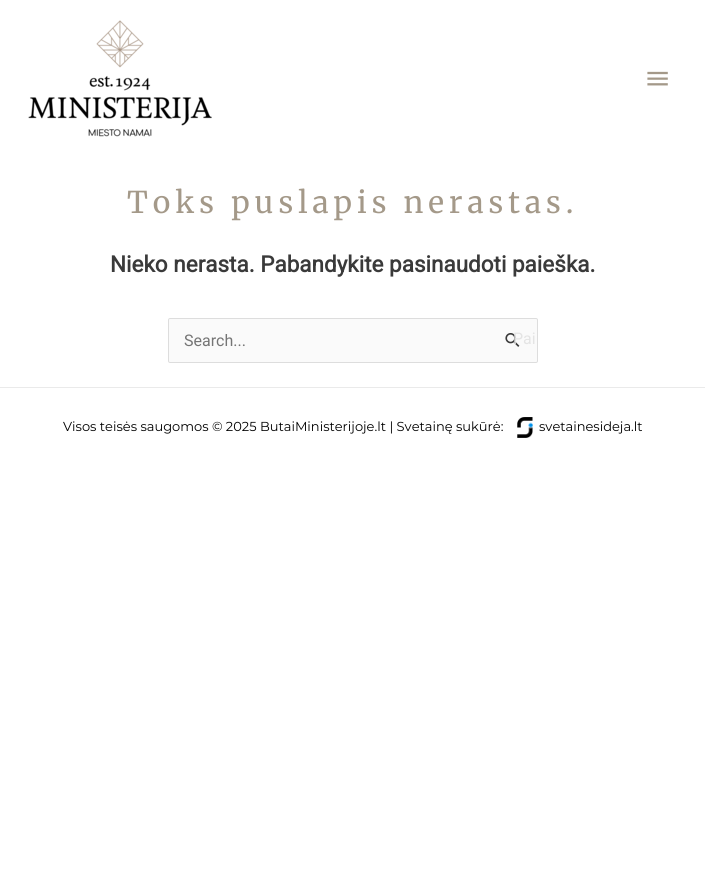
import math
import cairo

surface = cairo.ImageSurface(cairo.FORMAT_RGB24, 705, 871)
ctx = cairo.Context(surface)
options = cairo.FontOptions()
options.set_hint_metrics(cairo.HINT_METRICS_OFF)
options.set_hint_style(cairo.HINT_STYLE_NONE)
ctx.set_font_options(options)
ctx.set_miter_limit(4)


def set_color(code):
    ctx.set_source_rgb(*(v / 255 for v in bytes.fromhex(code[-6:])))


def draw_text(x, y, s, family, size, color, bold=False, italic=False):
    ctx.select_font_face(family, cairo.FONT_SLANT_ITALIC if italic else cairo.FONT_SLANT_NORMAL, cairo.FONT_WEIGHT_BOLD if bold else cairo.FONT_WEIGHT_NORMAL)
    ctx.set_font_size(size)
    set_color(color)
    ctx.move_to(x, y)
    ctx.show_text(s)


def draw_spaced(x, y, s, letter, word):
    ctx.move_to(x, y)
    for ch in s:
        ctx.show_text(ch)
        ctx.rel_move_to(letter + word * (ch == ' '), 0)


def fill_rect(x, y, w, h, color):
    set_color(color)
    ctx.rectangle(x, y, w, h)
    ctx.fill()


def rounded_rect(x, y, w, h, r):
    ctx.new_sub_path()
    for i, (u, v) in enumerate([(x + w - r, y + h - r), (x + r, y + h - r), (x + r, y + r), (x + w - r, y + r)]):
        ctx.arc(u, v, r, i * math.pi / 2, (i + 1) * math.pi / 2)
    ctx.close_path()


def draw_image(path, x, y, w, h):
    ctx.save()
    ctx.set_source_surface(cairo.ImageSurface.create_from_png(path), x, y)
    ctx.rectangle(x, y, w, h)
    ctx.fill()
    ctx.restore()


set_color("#ffffff")
ctx.paint()
draw_image("assets/img1.png", 28, 20, 184, 117)
draw_image("assets/img2.png", 647, 71, 21, 15)
ctx.select_font_face("Merriweather")
ctx.set_font_size(30)
set_color("#a49989")
draw_spaced(127, 213, "Toks puslapis nerastas.", 5, 0)
draw_text(110, 272, "Nieko nerasta. Pabandykite pasinaudoti paieška.", "Roboto", 22.5, "#3a3a3a", bold=True)
set_color("#fafafa")
rounded_rect(168.5, 318.5, 369, 44, 1.5)
ctx.fill_preserve()
set_color("#dddddd")
ctx.set_line_width(1)
ctx.stroke()
draw_text(184, 346, "Search...", "Roboto", 16, "#757575")
draw_image("assets/img3.png", 505, 333, 15, 14)
draw_text(513, 344, "Pai", "Roboto", 16, "#e4e4e4")
fill_rect(0, 387, 705, 1, "#eaeaea")
draw_text(63, 431, "Visos teisės saugomos © 2025 ButaiMinisterijoje.lt | Svetainę sukūrė:", "Montserrat", 13, "#000000")
draw_image("assets/img4.png", 517, 417, 16, 21)
draw_text(539, 431, "svetainesideja.lt", "Montserrat", 13, "#000000")
surface.write_to_png("output.png")
